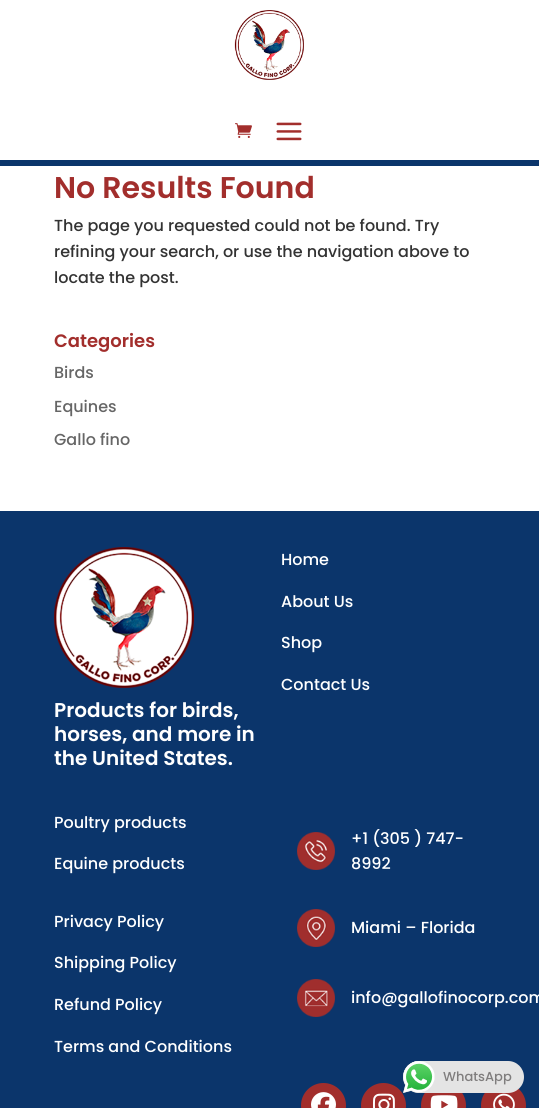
import math
import cairo

surface = cairo.ImageSurface(cairo.FORMAT_RGB24, 539, 1108)
ctx = cairo.Context(surface)
options = cairo.FontOptions()
options.set_hint_metrics(cairo.HINT_METRICS_OFF)
options.set_hint_style(cairo.HINT_STYLE_NONE)
ctx.set_font_options(options)
ctx.set_miter_limit(4)


def set_color(code):
    ctx.set_source_rgb(*(v / 255 for v in bytes.fromhex(code[-6:])))


def draw_text(x, y, s, family, size, color, bold=False, italic=False):
    ctx.select_font_face(family, cairo.FONT_SLANT_ITALIC if italic else cairo.FONT_SLANT_NORMAL, cairo.FONT_WEIGHT_BOLD if bold else cairo.FONT_WEIGHT_NORMAL)
    ctx.set_font_size(size)
    set_color(color)
    ctx.move_to(x, y)
    ctx.show_text(s)


def fill_rect(x, y, w, h, color):
    set_color(color)
    ctx.rectangle(x, y, w, h)
    ctx.fill()


def rounded_rect(x, y, w, h, r):
    ctx.new_sub_path()
    for i, (u, v) in enumerate([(x + w - r, y + h - r), (x + r, y + h - r), (x + r, y + r), (x + w - r, y + r)]):
        ctx.arc(u, v, r, i * math.pi / 2, (i + 1) * math.pi / 2)
    ctx.close_path()


def draw_image(path, x, y, w, h):
    ctx.save()
    ctx.set_source_surface(cairo.ImageSurface.create_from_png(path), x, y)
    ctx.rectangle(x, y, w, h)
    ctx.fill()
    ctx.restore()


set_color("#ffffff")
ctx.paint()
draw_image("assets/img1.png", 234, 10, 70, 70)
draw_image("assets/img2.png", 235, 123, 17, 15)
draw_image("assets/img3.png", 276, 122, 26, 19)
fill_rect(0, 160, 539, 6, "#0b356b")
draw_text(54, 198, "No Results Found", "Poppins SemiBold", 30, "#a22e2c")
draw_text(54, 231, "The page you requested could not be found. Try", "Poppins Medium", 16, "#333333")
draw_text(54, 257, "refining your search, or use the navigation above to", "Poppins Medium", 16, "#333333")
draw_text(54, 283, "locate the post.", "Poppins Medium", 16, "#333333")
draw_text(54, 347, "Categories", "Poppins SemiBold", 18, "#a22e2c")
draw_text(54, 378, "Birds", "Poppins Medium", 16, "#666666")
draw_text(54, 412, "Equines", "Poppins Medium", 16, "#666666")
draw_text(54, 445, "Gallo fino", "Poppins Medium", 16, "#666666")
fill_rect(0, 511, 539, 597, "#0b356b")
draw_text(281, 565, "Home", "Poppins Medium", 16, "#ffffff")
draw_text(281, 607, "About Us", "Poppins Medium", 16, "#ffffff")
draw_text(281, 648, "Shop", "Poppins Medium", 16, "#ffffff")
draw_text(281, 690, "Contact Us", "Poppins Medium", 16, "#ffffff")
draw_image("assets/img4.png", 54, 547, 140, 141)
draw_text(54, 717, "Products for birds,", "Poppins SemiBold", 20, "#ffffff")
draw_text(54, 741, "horses, and more in", "Poppins SemiBold", 20, "#ffffff")
draw_text(54, 765, "the United States.", "Poppins SemiBold", 20, "#ffffff")
draw_text(54, 828, "Poultry products", "Poppins Medium", 16, "#ffffff")
draw_text(54, 869, "Equine products", "Poppins Medium", 16, "#ffffff")
draw_text(54, 927, "Privacy Policy", "Poppins Medium", 16, "#ffffff")
draw_text(54, 968, "Shipping Policy", "Poppins Medium", 16, "#ffffff")
draw_text(54, 1010, "Refund Policy", "Poppins Medium", 16, "#ffffff")
draw_text(54, 1052, "Terms and Conditions", "Poppins Medium", 16, "#ffffff")
draw_image("assets/img5.png", 297, 832, 38, 38)
draw_text(351, 844, "+1 (305 ) 747-", "Poppins Medium", 16, "#ffffff")
draw_text(351, 869, "8992", "Poppins Medium", 16, "#ffffff")
draw_image("assets/img6.png", 297, 909, 38, 38)
draw_text(351, 933, "Miami – Florida", "Poppins Medium", 16, "#ffffff")
draw_image("assets/img7.png", 297, 979, 38, 38)
draw_text(351, 1003, "info@gallofinocorp.com", "Poppins Medium", 16, "#ffffff")
set_color("#a22e2c")
ctx.new_path()
ctx.arc(323.5, 1105.5, 22.5, 0, 2 * math.pi)
ctx.fill()
draw_image("assets/img8.png", 311, 1092, 25, 16)
ctx.arc(383.5, 1105.5, 22.5, 0, 2 * math.pi)
ctx.fill()
draw_image("assets/img9.png", 373, 1093, 22, 15)
ctx.arc(443.5, 1105.5, 22.5, 0, 2 * math.pi)
ctx.fill()
draw_image("assets/img10.png", 430, 1095, 28, 13)
ctx.arc(503.5, 1105.5, 22.5, 0, 2 * math.pi)
ctx.fill()
draw_image("assets/img11.png", 493, 1093, 22, 15)
set_color("#e4e4e4")
rounded_rect(403, 1061, 121, 32, 16)
ctx.fill()
draw_image("assets/img12.png", 403, 1061, 32, 32)
draw_text(443, 1081, "WhatsApp", "Poppins Medium", 13, "#7f7d7d")
surface.write_to_png("output.png")
